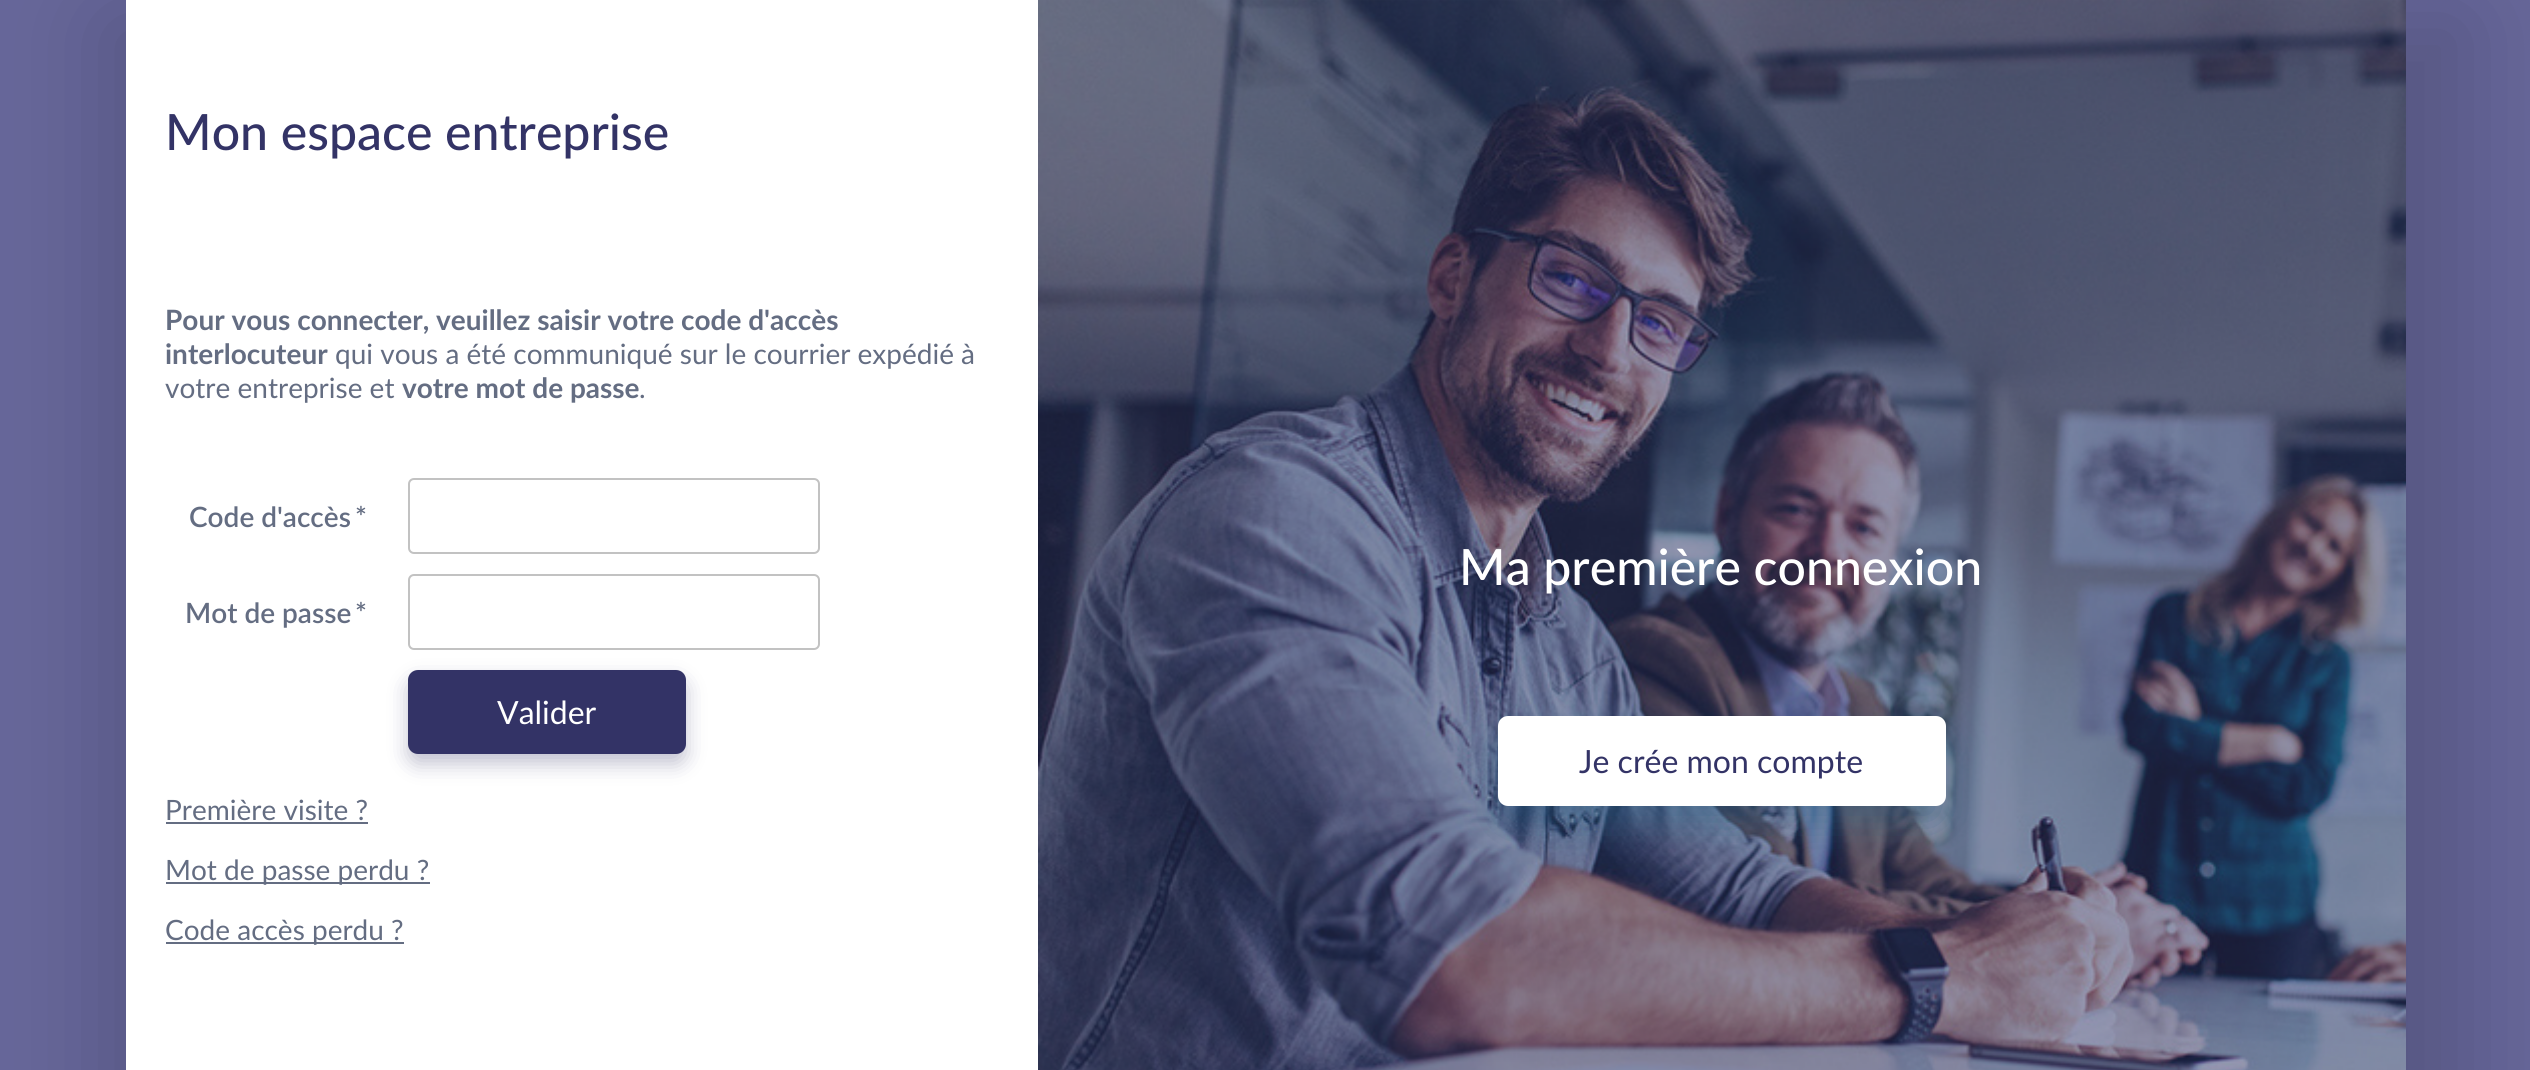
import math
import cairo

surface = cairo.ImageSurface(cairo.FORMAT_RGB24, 2530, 1070)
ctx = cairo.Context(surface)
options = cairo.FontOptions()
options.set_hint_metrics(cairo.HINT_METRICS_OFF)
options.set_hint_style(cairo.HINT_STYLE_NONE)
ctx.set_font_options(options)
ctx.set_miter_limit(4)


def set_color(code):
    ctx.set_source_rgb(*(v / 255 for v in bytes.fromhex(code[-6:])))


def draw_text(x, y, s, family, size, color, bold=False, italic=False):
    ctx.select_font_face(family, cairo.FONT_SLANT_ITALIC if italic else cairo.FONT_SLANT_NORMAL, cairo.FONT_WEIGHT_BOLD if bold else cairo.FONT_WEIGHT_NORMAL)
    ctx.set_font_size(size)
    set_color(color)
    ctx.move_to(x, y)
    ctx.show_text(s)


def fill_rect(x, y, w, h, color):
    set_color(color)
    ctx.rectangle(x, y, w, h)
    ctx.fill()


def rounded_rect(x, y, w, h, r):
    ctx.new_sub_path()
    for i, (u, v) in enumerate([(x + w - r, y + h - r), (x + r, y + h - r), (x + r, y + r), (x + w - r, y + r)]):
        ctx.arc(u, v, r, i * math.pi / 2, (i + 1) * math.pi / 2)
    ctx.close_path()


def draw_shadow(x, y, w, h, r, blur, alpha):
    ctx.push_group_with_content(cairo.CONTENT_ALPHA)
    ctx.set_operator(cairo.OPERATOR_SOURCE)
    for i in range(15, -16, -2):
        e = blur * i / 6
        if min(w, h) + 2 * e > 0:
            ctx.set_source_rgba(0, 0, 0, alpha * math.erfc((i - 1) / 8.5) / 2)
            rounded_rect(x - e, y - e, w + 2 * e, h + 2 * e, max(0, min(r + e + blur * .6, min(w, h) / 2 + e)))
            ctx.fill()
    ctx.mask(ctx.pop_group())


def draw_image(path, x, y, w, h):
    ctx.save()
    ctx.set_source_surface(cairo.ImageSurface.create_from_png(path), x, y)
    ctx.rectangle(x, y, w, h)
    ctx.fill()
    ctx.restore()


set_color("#666699")
ctx.paint()
set_color("#000000")
draw_shadow(106, 20, 2360, 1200, 0, 50, 0.15)
fill_rect(126, 0, 912, 1070, "#ffffff")
draw_text(165, 150, "Mon espace entreprise", "Lato Medium", 50, "#333366")
draw_text(165, 330, "Pour vous connecter, veuillez saisir votre code d'accès", "Lato", 28, "#646d82", bold=True)
draw_text(165, 364, "interlocuteur", "Lato", 28, "#646d82", bold=True)
draw_text(335, 364, "qui vous a été communiqué sur le courrier expédié à", "Lato", 28, "#646d82")
draw_text(165, 398, "votre entreprise et", "Lato", 28, "#646d82")
draw_text(402, 398, "votre mot de passe", "Lato", 28, "#646d82", bold=True)
draw_text(639, 398, ".", "Lato", 28, "#646d82")
draw_text(189, 527, "Code d'accès", "Lato SemiBold", 28, "#646d82")
draw_text(355, 527, "*", "Lato SemiBold", 28, "#646d82")
rounded_rect(409, 479, 410, 74, 5)
set_color("#c2c2c2")
ctx.stroke()
draw_text(185, 623, "Mot de passe", "Lato SemiBold", 28, "#646d82")
draw_text(355, 623, "*", "Lato SemiBold", 28, "#646d82")
rounded_rect(409, 575, 410, 74, 5)
set_color("#c2c2c2")
ctx.stroke()
set_color("#333366")
draw_shadow(408, 680, 278, 84, 10, 10, 0.3)
set_color("#333366")
rounded_rect(409, 671, 276, 82, 9)
ctx.fill_preserve()
ctx.stroke()
draw_text(497, 724, "Valider", "Lato", 32, "#ffffff")
draw_text(165, 820, "Première visite ?", "Lato", 28, "#646d82")
fill_rect(166, 822, 202, 2, "#646d82")
fill_rect(166, 882, 264, 2, "#646d82")
draw_text(165, 880, "Mot de passe perdu ?", "Lato", 28, "#646d82")
fill_rect(166, 942, 238, 2, "#646d82")
draw_text(165, 940, "Code accès perdu ?", "Lato", 28, "#646d82")
draw_image("assets/img1.png", 1038, 0, 1368, 1070)
draw_text(1459, 585, "Ma première connexion", "Lato Medium", 50, "#ffffff")
set_color("#265f83")
draw_shadow(1498, 736, 448, 90, 10, 20, 0.5)
set_color("#ffffff")
rounded_rect(1499, 717, 446, 88, 9)
ctx.fill_preserve()
ctx.stroke()
draw_text(1579, 773, "Je crée mon compte", "Lato", 32, "#333366")
surface.write_to_png("output.png")
